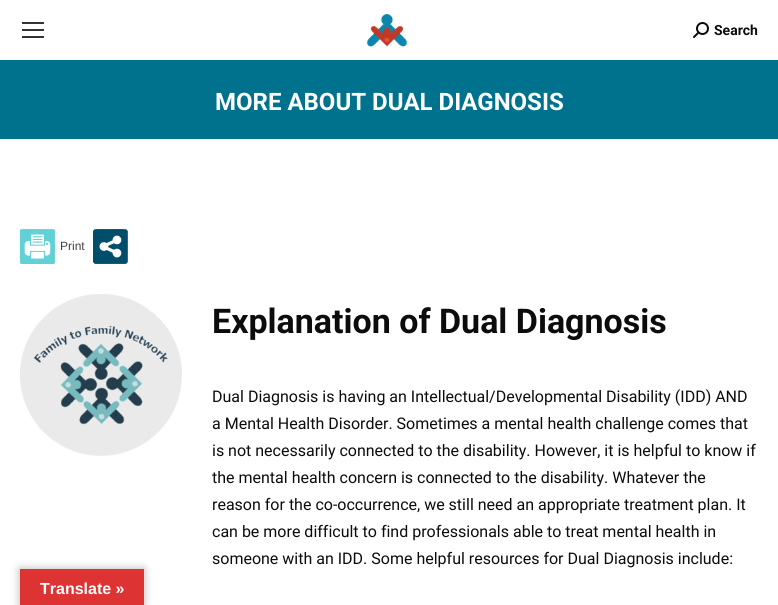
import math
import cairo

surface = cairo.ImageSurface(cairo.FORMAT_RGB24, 778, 605)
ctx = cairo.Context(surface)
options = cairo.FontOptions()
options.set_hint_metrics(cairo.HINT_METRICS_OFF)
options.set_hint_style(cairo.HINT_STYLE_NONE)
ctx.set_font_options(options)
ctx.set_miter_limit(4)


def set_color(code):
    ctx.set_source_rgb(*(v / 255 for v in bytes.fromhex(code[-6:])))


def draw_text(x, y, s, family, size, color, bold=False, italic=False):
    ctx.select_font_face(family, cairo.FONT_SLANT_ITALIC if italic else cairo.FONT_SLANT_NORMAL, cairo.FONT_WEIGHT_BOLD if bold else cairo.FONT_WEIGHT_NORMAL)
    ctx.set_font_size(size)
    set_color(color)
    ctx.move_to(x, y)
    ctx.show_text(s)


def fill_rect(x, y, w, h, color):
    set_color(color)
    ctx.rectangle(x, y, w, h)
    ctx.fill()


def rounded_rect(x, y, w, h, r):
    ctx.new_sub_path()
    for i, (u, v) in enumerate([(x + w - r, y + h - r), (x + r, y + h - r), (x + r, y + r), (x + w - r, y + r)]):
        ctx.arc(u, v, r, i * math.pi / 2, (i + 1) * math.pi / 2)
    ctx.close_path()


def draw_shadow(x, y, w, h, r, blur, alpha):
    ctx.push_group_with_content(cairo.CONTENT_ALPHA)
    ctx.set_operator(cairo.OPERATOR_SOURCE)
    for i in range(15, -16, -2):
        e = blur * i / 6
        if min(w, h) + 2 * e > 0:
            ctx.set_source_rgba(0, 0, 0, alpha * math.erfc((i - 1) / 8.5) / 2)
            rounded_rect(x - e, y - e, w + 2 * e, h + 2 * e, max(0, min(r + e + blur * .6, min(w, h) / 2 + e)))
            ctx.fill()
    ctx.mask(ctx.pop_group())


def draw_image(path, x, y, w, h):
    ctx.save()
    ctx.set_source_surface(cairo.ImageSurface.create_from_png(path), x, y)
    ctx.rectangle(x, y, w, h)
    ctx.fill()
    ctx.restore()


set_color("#ffffff")
ctx.paint()
fill_rect(22, 22, 22, 2, "#333333")
fill_rect(22, 29, 22, 2, "#333333")
fill_rect(22, 36, 22, 2, "#333333")
draw_image("assets/img1.png", 366, 14, 42, 33)
draw_image("assets/img2.png", 693, 22, 16, 16)
draw_text(714, 35, "Search", "Roboto", 14, "#0c0c0c", bold=True)
fill_rect(0, 60, 778, 79, "#00728e")
draw_text(215, 110, "MORE ABOUT DUAL DIAGNOSIS", "Roboto", 24, "#ffffff", bold=True)
draw_image("assets/img3.png", 20, 229, 35, 35)
draw_text(60, 250, "Print", "Liberation Sans", 12, "#424242")
draw_image("assets/img4.png", 93, 229, 35, 35)
draw_image("assets/img5.png", 20, 294, 162, 162)
draw_text(212, 333, "Explanation of Dual Diagnosis", "Roboto", 34, "#0c0c0c", bold=True)
draw_text(212, 402, "Dual Diagnosis is having an Intellectual/Developmental Disability (IDD) AND", "Roboto", 16, "#0c0c0c")
draw_text(212, 429, "a Mental Health Disorder. Sometimes a mental health challenge comes that", "Roboto", 16, "#0c0c0c")
draw_text(212, 456, "is not necessarily connected to the disability. However, it is helpful to know if", "Roboto", 16, "#0c0c0c")
draw_text(212, 483, "the mental health concern is connected to the disability. Whatever the", "Roboto", 16, "#0c0c0c")
draw_text(212, 510, "reason for the co-occurrence, we still need an appropriate treatment plan. It", "Roboto", 16, "#0c0c0c")
draw_text(212, 537, "can be more difficult to find professionals able to treat mental health in", "Roboto", 16, "#0c0c0c")
draw_text(212, 564, "someone with an IDD. Some helpful resources for Dual Diagnosis include:", "Roboto", 16, "#0c0c0c")
set_color("#000000")
draw_shadow(20, 569, 124, 36, 0, 4.5, 0.3)
fill_rect(20, 569, 124, 36, "#dd3333")
draw_text(40, 594, "Translate »", "Liberation Sans", 16, "#ffffff", bold=True)
surface.write_to_png("output.png")
